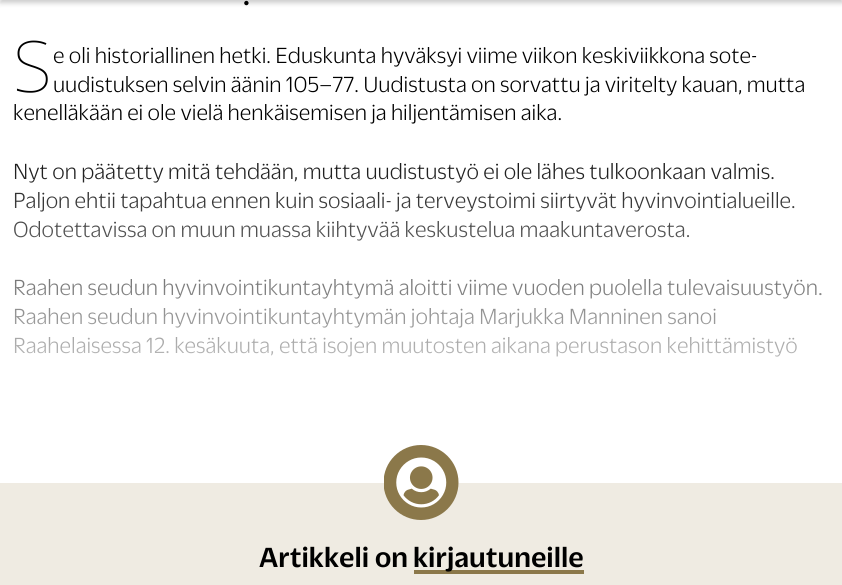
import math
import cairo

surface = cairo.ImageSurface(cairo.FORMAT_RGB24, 842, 585)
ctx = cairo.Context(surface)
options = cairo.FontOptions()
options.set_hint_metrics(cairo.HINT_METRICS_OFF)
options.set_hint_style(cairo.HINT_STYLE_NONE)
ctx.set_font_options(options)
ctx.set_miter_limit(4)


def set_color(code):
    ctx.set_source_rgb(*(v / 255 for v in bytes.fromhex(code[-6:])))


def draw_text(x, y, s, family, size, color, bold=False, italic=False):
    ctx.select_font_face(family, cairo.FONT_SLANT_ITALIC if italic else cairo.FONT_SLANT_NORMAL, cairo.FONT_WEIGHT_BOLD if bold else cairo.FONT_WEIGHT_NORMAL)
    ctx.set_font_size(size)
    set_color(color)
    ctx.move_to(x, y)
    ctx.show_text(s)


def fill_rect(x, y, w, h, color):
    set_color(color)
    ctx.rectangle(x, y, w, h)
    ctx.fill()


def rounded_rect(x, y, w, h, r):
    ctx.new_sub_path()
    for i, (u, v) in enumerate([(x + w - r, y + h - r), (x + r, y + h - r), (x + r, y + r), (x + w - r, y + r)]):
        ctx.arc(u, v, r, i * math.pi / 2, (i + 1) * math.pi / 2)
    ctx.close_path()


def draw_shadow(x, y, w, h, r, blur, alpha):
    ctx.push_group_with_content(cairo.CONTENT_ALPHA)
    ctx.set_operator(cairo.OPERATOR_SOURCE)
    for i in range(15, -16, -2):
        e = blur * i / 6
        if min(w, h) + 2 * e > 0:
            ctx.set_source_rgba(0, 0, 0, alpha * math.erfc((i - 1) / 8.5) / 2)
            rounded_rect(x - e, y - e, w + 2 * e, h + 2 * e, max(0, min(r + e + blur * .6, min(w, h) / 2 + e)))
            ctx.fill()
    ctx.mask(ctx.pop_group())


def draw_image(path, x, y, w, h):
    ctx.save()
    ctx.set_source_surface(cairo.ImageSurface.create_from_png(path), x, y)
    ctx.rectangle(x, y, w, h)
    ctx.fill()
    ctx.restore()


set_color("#ffffff")
ctx.paint()
set_color("#000000")
draw_shadow(0, -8, 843, 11, 0, 2.5, 0.2)
draw_text(243, 5, ".", "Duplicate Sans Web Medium", 28, "#000000")
draw_text(13, 92, "S", "Noto Sans Thin", 71, "#000000")
draw_text(53, 63, "e oli historiallinen hetki. Eduskunta hyväksyi viime viikon keskiviikkona sote-", "Duplicate Sans Web Light", 23.75, "#000000")
draw_text(53, 92, "uudistuksen selvin äänin 105–77. Uudistusta on sorvattu ja viritelty kauan, mutta", "Duplicate Sans Web Light", 23.75, "#000000")
draw_text(13, 120, "kenelläkään ei ole vielä henkäisemisen ja hiljentämisen aika.", "Duplicate Sans Web Light", 23.75, "#000000")
draw_text(13, 179, "Nyt on päätetty mitä tehdään, mutta uudistustyö ei ole lähes tulkoonkaan valmis.", "Duplicate Sans Web Light", 23.75, "#000000")
draw_text(13, 208, "Paljon ehtii tapahtua ennen kuin sosiaali- ja terveystoimi siirtyvät hyvinvointialueille.", "Duplicate Sans Web Light", 23.75, "#000000")
draw_text(13, 237, "Odotettavissa on muun muassa kiihtyvää keskustelua maakuntaverosta.", "Duplicate Sans Web Light", 23.75, "#000000")
draw_text(13, 295, "Raahen seudun hyvinvointikuntayhtymä aloitti viime vuoden puolella tulevaisuustyön.", "Duplicate Sans Web Light", 23.75, "#000000")
draw_text(13, 324, "Raahen seudun hyvinvointikuntayhtymän johtaja Marjukka Manninen sanoi", "Duplicate Sans Web Light", 23.75, "#000000")
draw_text(13, 353, "Raahelaisessa 12. kesäkuuta, että isojen muutosten aikana perustason kehittämistyö", "Duplicate Sans Web Light", 23.75, "#000000")
gradient = cairo.LinearGradient(421, 445, 421, 133)
gradient.add_color_stop_rgba(0, 1, 1, 1, 1)
gradient.add_color_stop_rgba(1, 1, 1, 1, 0)
ctx.set_source(gradient)
ctx.rectangle(13, 163, 808, 194)
ctx.fill()
fill_rect(0, 483, 842, 102, "#efebe2")
draw_image("assets/img1.png", 384, 445, 75, 75)
draw_text(259, 567, "Artikkeli on", "Duplicate Sans Web Medium", 30, "#000000")
fill_rect(414, 570, 170, 4, "#8b784a")
draw_text(413, 567, "kirjautuneille", "Duplicate Sans Web Medium", 30, "#000000")
surface.write_to_png("output.png")
